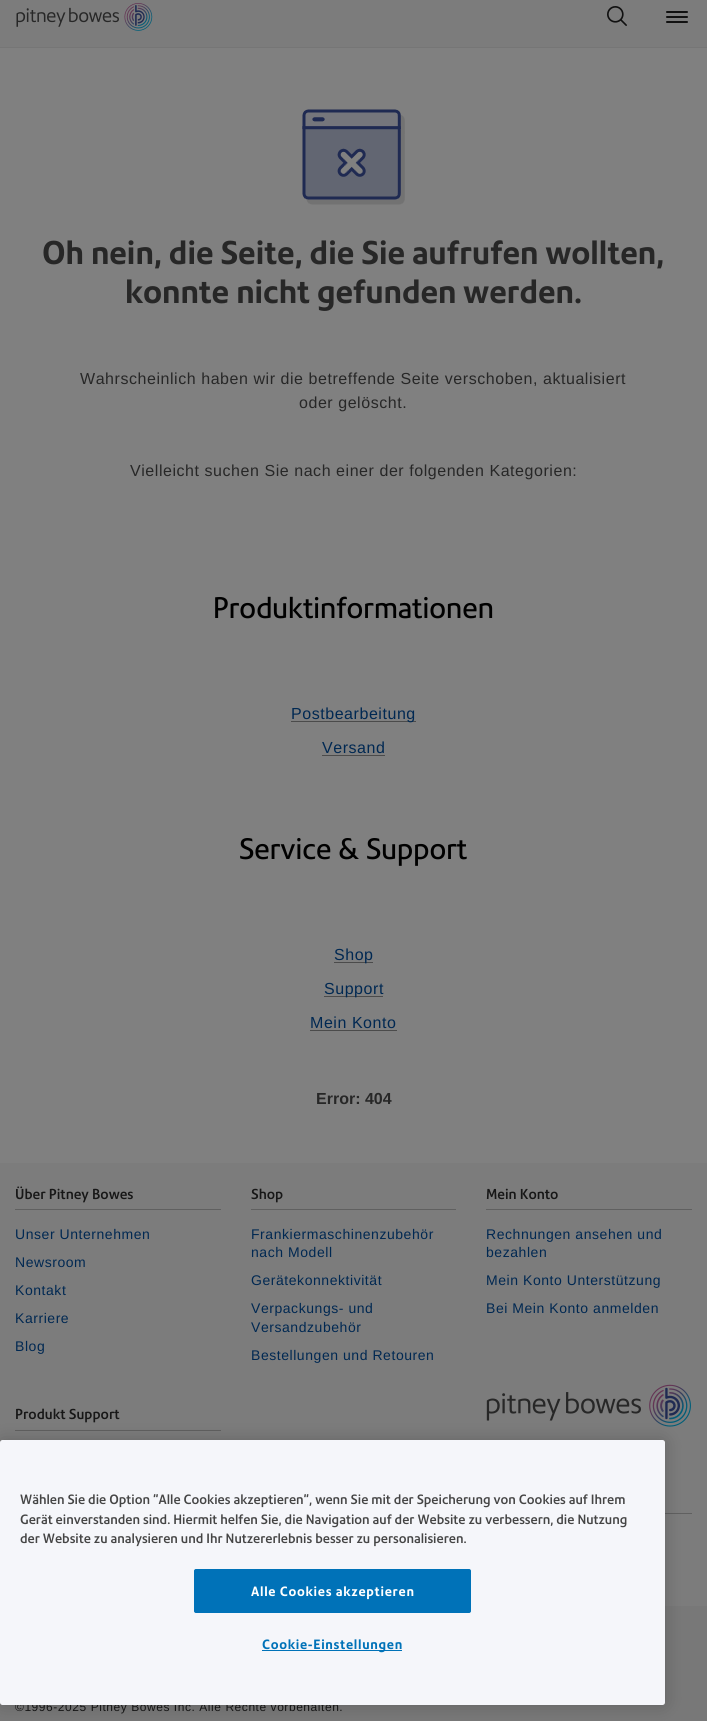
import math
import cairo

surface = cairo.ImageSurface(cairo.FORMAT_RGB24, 707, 1721)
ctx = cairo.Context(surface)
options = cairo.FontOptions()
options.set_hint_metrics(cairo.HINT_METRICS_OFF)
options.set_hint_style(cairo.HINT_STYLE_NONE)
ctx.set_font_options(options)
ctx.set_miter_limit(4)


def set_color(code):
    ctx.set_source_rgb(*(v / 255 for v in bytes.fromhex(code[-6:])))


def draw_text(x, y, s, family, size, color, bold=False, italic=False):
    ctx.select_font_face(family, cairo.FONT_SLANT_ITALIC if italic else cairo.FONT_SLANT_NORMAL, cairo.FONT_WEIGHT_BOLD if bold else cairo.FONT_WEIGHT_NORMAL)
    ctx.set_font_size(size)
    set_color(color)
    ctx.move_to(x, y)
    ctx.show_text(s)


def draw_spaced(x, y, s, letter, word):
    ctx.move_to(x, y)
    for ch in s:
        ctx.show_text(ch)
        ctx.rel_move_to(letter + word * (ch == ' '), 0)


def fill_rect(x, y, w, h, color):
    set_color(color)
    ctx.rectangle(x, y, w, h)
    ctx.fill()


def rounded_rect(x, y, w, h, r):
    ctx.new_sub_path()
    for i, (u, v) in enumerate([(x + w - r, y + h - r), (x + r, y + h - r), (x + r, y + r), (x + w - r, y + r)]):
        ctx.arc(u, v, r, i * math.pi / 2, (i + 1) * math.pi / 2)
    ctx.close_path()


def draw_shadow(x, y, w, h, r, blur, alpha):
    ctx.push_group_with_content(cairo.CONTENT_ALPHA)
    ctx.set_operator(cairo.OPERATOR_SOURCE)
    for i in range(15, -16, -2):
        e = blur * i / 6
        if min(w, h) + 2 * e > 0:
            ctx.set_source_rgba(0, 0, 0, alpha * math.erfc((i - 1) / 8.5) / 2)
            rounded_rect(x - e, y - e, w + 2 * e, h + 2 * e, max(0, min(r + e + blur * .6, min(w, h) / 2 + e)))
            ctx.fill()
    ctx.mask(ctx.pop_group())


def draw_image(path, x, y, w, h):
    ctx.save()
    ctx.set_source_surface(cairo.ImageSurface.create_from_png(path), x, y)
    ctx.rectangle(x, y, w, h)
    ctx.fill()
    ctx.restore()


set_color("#808080")
ctx.paint()
fill_rect(0, 0, 707, 47, "#7c7c7c")
draw_image("assets/img1.png", 16, 3, 137, 28)
draw_image("assets/img2.png", 607, 6, 20, 20)
ctx.new_path()
ctx.move_to(667, 12)
ctx.line_to(687, 12)
ctx.move_to(667, 22)
ctx.line_to(687, 22)
ctx.move_to(667, 17)
ctx.line_to(687, 17)
set_color("#111111")
ctx.set_line_cap(cairo.LINE_CAP_ROUND)
ctx.stroke()
fill_rect(0, 47, 707, 1, "#767676")
draw_image("assets/img3.png", 302, 109, 103, 96)
draw_text(42, 264, "Oh nein, die Seite, die Sie aufrufen wollten,", "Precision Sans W", 32, "#272727", bold=True)
draw_text(125, 303, "konnte nicht gefunden werden.", "Precision Sans W", 32, "#272727", bold=True)
ctx.select_font_face("Liberation Sans")
ctx.set_font_size(16)
draw_spaced(80, 384, "Wahrscheinlich haben wir die betreffende Seite verschoben, aktualisiert", 0.55, 0)
draw_spaced(299, 408, "oder gelöscht.", 0.55, 0)
draw_spaced(130, 476, "Vielleicht suchen Sie nach einer der folgenden Kategorien:", 0.55, 0)
draw_text(213, 618, "Produktinformationen", "Precision Sans W", 28.75, "#000000")
fill_rect(291, 721, 125, 1, "#4b4b4b")
ctx.select_font_face("Liberation Sans")
ctx.set_font_size(16)
set_color("#002852")
draw_spaced(291, 719, "Postbearbeitung", 0.55, 0)
draw_spaced(322, 753, "Versand", 0.55, 0)
fill_rect(322, 755, 63, 1, "#4b4b4b")
draw_text(239, 859, "Service & Support", "Precision Sans W", 28.75, "#000000")
fill_rect(334, 962, 39, 1, "#4b4b4b")
ctx.select_font_face("Liberation Sans")
ctx.set_font_size(16)
set_color("#002852")
draw_spaced(334, 960, "Shop", 0.55, 0)
fill_rect(324, 996, 59, 1, "#4b4b4b")
set_color("#002852")
draw_spaced(324, 994, "Support", 0.55, 0)
draw_spaced(310, 1028, "Mein Konto", 0.55, 0)
fill_rect(310, 1030, 87, 1, "#4b4b4b")
draw_text(316, 1104, "Error: 404", "Liberation Sans", 16, "#272727", bold=True)
fill_rect(0, 1163, 707, 443, "#7c7c7c")
draw_text(15, 1199, "Über Pitney Bowes", "Precision Sans W Medium", 14, "#171717")
fill_rect(15, 1209, 206, 1, "#606060")
ctx.select_font_face("Liberation Sans")
set_color("#002852")
draw_spaced(15, 1239, "Unser Unternehmen", 0.55, 0)
draw_spaced(15, 1267, "Newsroom", 0.55, 0)
draw_spaced(15, 1295, "Kontakt", 0.55, 0)
draw_spaced(15, 1323, "Karriere", 0.55, 0)
draw_spaced(15, 1351, "Blog", 0.55, 0)
draw_text(251, 1199, "Shop", "Precision Sans W Medium", 14, "#171717")
fill_rect(251, 1209, 205, 1, "#606060")
ctx.select_font_face("Liberation Sans")
set_color("#002852")
draw_spaced(251, 1239, "Frankiermaschinenzubehör", 0.55, 0)
draw_spaced(251, 1257, "nach Modell", 0.55, 0)
draw_spaced(251, 1285, "Gerätekonnektivität", 0.55, 0)
draw_spaced(251, 1313, "Verpackungs- und", 0.55, 0)
draw_spaced(251, 1332, "Versandzubehör", 0.55, 0)
draw_spaced(251, 1360, "Bestellungen und Retouren", 0.55, 0)
draw_text(486, 1199, "Mein Konto", "Precision Sans W Medium", 14, "#171717")
fill_rect(486, 1209, 206, 1, "#606060")
ctx.select_font_face("Liberation Sans")
set_color("#002852")
draw_spaced(486, 1239, "Rechnungen ansehen und", 0.55, 0)
draw_spaced(486, 1257, "bezahlen", 0.55, 0)
draw_spaced(486, 1285, "Mein Konto Unterstützung", 0.55, 0)
draw_spaced(486, 1313, "Bei Mein Konto anmelden", 0.55, 0)
draw_text(15, 1419, "Produkt Support", "Precision Sans W Medium", 14, "#171717")
fill_rect(15, 1430, 206, 1, "#606060")
draw_image("assets/img4.png", 486, 1384, 205, 43)
fill_rect(665, 1513, 27, 1, "#606060")
fill_rect(0, 1606, 707, 115, "#787878")
ctx.select_font_face("Liberation Sans")
ctx.set_font_size(12)
set_color("#171717")
draw_spaced(15, 1711, "©1996-2025 Pitney Bowes Inc. Alle Rechte vorbehalten.", 0.55, 0)
set_color("#000000")
draw_shadow(0, 1440, 665, 265, 2.5, 9, 0.2)
set_color("#f5f6fa")
rounded_rect(0, 1440, 665, 265, 2.5)
ctx.fill()
draw_text(20, 1504, "Wählen Sie die Option \"Alle Cookies akzeptieren\", wenn Sie mit der Speicherung von Cookies auf Ihrem", "Precision Sans W Medium", 13.1, "#454545")
draw_text(20, 1524, "Gerät einverstanden sind. Hiermit helfen Sie, die Navigation auf der Website zu verbessern, die Nutzung", "Precision Sans W Medium", 13.1, "#454545")
draw_text(20, 1543, "der Website zu analysieren und Ihr Nutzererlebnis besser zu personalisieren.", "Precision Sans W Medium", 13.1, "#454545")
set_color("#0072b8")
rounded_rect(194.5, 1569.5, 276, 43, 1.5)
ctx.fill_preserve()
ctx.set_line_width(1)
ctx.set_line_cap(cairo.LINE_CAP_BUTT)
ctx.stroke()
ctx.select_font_face("Precision Sans W", cairo.FONT_SLANT_NORMAL, cairo.FONT_WEIGHT_BOLD)
set_color("#ffffff")
draw_spaced(251, 1596, "Alle Cookies akzeptieren", 0.7, 0)
fill_rect(262, 1650, 140, 1, "#0072b8")
draw_spaced(262, 1649, "Cookie-Einstellungen", 0.7, 0)
surface.write_to_png("output.png")
